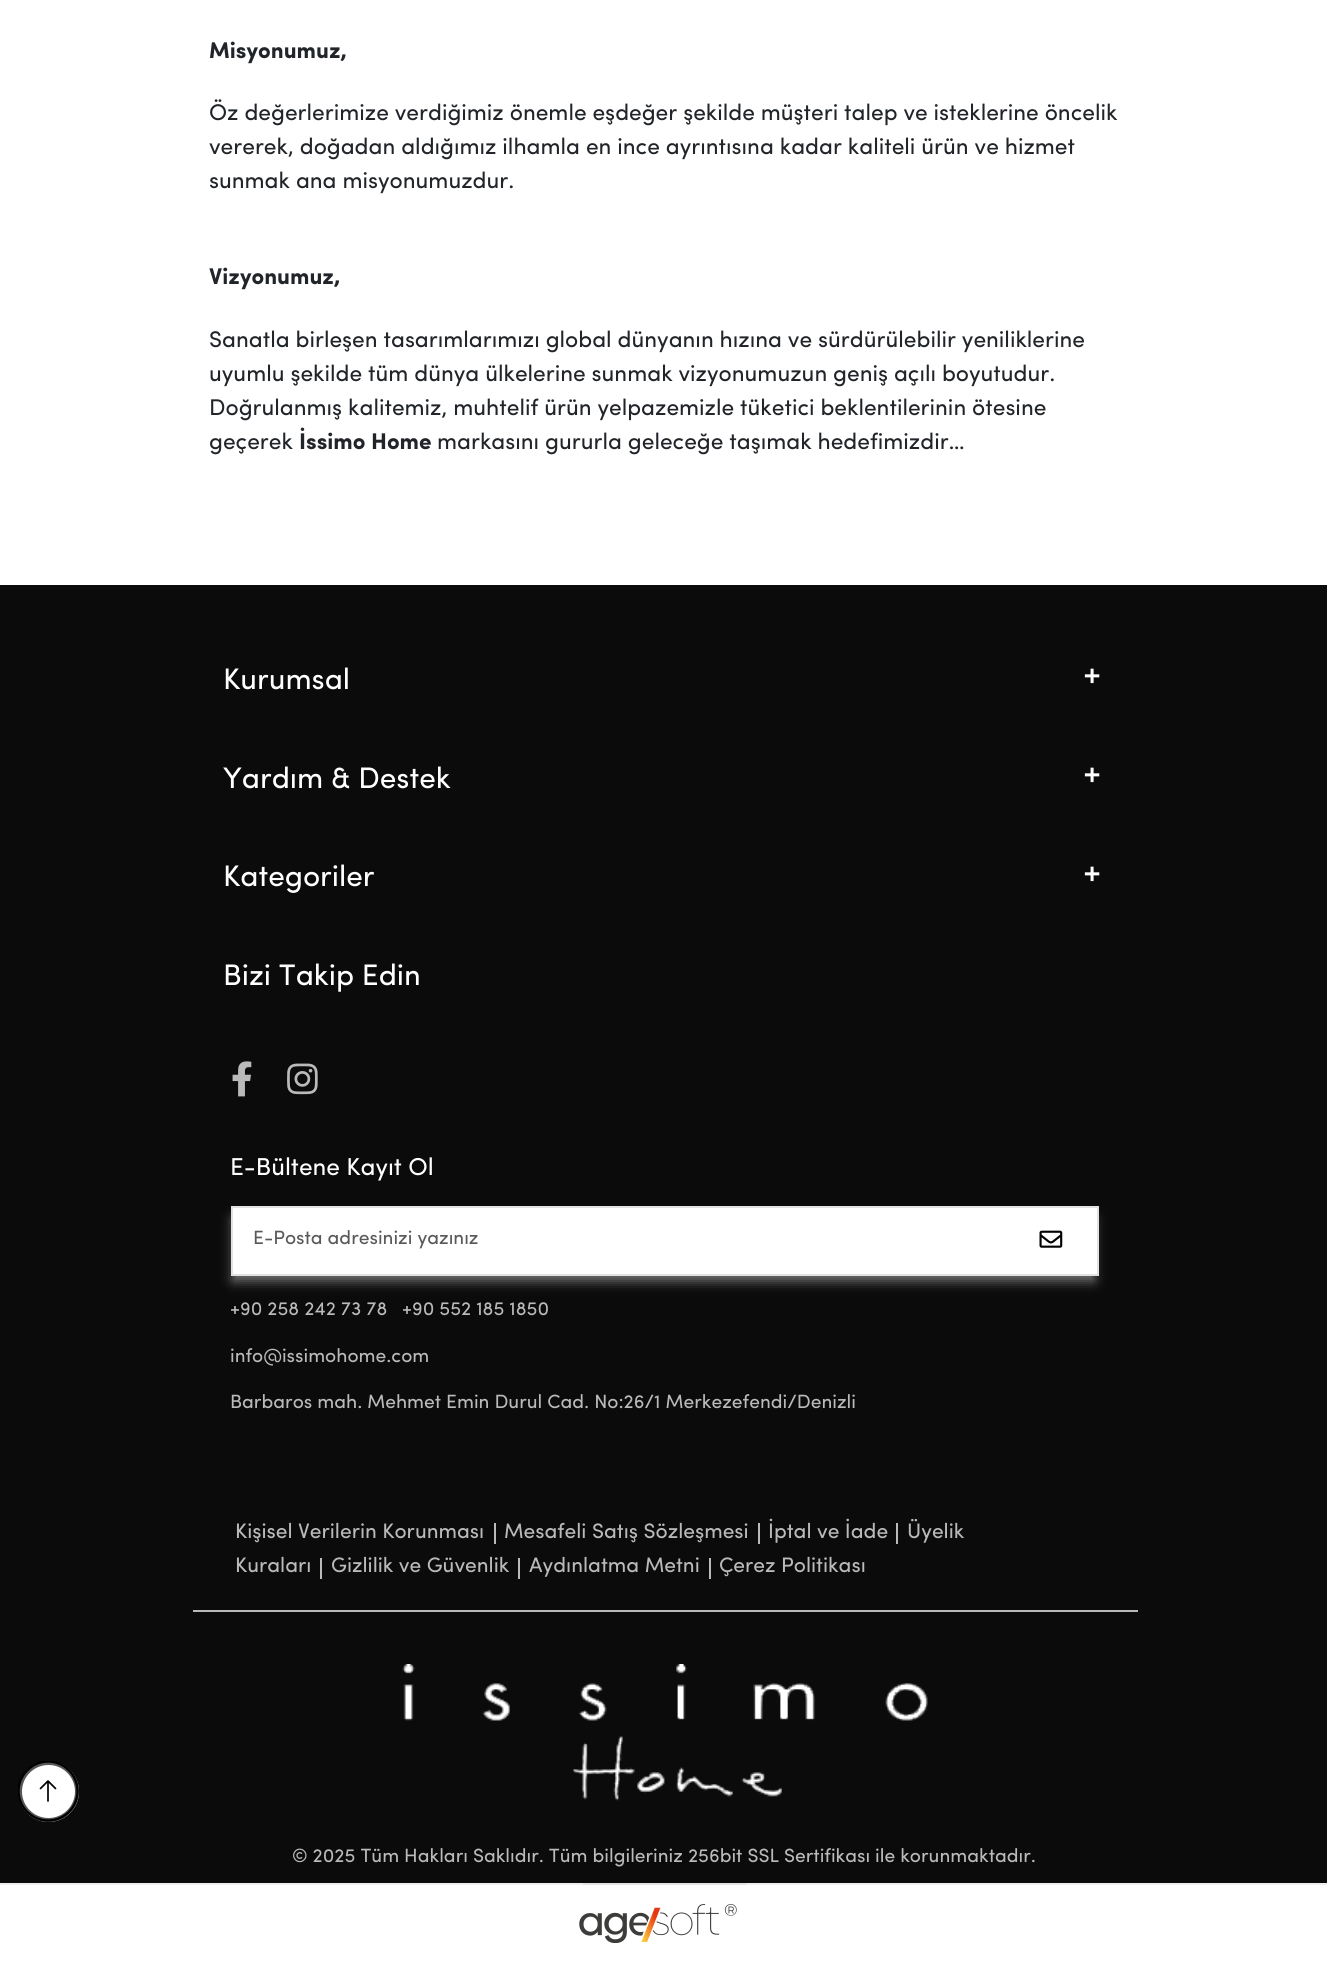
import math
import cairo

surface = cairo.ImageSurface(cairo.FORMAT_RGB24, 1327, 1961)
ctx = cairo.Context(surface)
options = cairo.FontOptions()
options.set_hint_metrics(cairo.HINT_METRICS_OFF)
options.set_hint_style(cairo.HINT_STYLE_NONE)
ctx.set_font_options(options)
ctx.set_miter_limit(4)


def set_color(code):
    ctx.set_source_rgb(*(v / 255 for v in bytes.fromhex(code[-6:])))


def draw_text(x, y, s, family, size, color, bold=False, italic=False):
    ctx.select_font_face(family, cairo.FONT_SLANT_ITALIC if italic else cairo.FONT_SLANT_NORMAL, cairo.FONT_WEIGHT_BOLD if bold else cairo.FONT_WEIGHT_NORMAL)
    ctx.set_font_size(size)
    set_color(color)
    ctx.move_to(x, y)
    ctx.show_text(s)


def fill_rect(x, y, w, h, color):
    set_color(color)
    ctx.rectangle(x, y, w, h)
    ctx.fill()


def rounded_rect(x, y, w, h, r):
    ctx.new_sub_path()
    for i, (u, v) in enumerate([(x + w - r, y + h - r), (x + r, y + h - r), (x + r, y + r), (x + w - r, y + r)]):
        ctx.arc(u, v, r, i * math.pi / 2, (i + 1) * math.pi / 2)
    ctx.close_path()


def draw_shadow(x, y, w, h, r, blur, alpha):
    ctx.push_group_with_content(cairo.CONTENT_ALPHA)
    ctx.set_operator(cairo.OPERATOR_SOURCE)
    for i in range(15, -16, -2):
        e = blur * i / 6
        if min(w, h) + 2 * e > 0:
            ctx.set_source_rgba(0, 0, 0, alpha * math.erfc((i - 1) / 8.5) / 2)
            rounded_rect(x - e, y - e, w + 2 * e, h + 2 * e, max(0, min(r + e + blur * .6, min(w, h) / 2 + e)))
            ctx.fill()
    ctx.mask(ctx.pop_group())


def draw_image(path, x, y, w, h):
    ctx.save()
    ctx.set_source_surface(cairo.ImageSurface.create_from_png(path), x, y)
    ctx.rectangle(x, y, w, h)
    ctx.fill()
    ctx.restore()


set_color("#ffffff")
ctx.paint()
draw_text(209, 58, "Misyonumuz,", "Sofia", 22.75, "#212529", bold=True)
draw_text(209, 120, "Öz değerlerimize verdiğimiz önemle eşdeğer şekilde müşteri talep ve isteklerine öncelik", "Sofia", 22.75, "#212529")
draw_text(209, 154, "vererek, doğadan aldığımız ilhamla en ince ayrıntısına kadar kaliteli ürün ve hizmet", "Sofia", 22.75, "#212529")
draw_text(209, 188, "sunmak ana misyonumuzdur.", "Sofia", 22.75, "#212529")
draw_text(209, 284, "Vizyonumuz,", "Sofia", 22.75, "#212529", bold=True)
draw_text(209, 347, "Sanatla birleşen tasarımlarımızı global dünyanın hızına ve sürdürülebilir yeniliklerine", "Sofia", 22.75, "#212529")
draw_text(209, 381, "uyumlu şekilde tüm dünya ülkelerine sunmak vizyonumuzun geniş açılı boyutudur.", "Sofia", 22.75, "#212529")
draw_text(209, 415, "Doğrulanmış kalitemiz, muhtelif ürün yelpazemizle tüketici beklentilerinin ötesine", "Sofia", 22.75, "#212529")
draw_text(209, 449, "geçerek", "Sofia", 22.75, "#212529")
draw_text(299, 449, "İssimo Home", "Sofia", 22.75, "#212529", bold=True)
draw_text(437, 449, "markasını gururla geleceğe taşımak hedefimizdir…", "Sofia", 22.75, "#212529")
fill_rect(0, 585, 1327, 1298, "#0b0b0c")
set_color("#ffffff")
ctx.new_path()
ctx.arc(48.5, 1791.5, 30.5, 0, 2 * math.pi)
ctx.fill()
ctx.arc(48.5, 1791.5, 28.5, 0, 2 * math.pi)
ctx.set_source_rgba(0, 0, 0, 0.66)
ctx.set_line_width(4)
ctx.stroke()
ctx.save()
ctx.rectangle(18, 1761, 61, 61)
ctx.clip()
ctx.new_path()
ctx.move_to(48, 1761.5)
ctx.curve_to(64.5, 1761.5, 77.5, 1775, 77.5, 1791)
ctx.curve_to(77.5, 1807.5, 64.5, 1820.5, 48, 1820.5)
ctx.curve_to(32, 1820.5, 18.5, 1807.5, 18.5, 1791)
ctx.curve_to(18.5, 1775, 32, 1761.5, 48, 1761.5)
set_color("#000000")
ctx.set_line_width(2.4)
ctx.stroke()
ctx.restore()
ctx.new_path()
ctx.move_to(48, 1801)
ctx.line_to(48, 1781)
ctx.move_to(48, 1781)
ctx.line_to(40.5, 1788.5)
ctx.move_to(48, 1781)
ctx.line_to(55.5, 1788.5)
set_color("#000000")
ctx.set_line_width(1.7)
ctx.set_line_cap(cairo.LINE_CAP_ROUND)
ctx.set_line_join(cairo.LINE_JOIN_ROUND)
ctx.stroke()
draw_text(223, 689, "Kurumsal", "Sofia", 29.75, "#ffffff")
draw_text(1083, 685, "+", "Sofia", 35, "#ffffff")
draw_text(223, 788, "Yardım & Destek", "Sofia", 29.75, "#ffffff")
draw_text(1083, 784, "+", "Sofia", 35, "#ffffff")
draw_text(223, 886, "Kategoriler", "Sofia", 29.75, "#ffffff")
draw_text(1083, 883, "+", "Sofia", 35, "#ffffff")
draw_text(223, 985, "Bizi Takip Edin", "Sofia", 29.75, "#ffffff")
draw_image("assets/img1.png", 232, 1061, 20, 36)
draw_image("assets/img2.png", 287, 1063, 31, 32)
draw_text(230, 1175, "E-Bültene Kayıt Ol", "Sofia", 24.5, "#ffffff")
set_color("#ffffff")
draw_shadow(233, 1218, 861, 63, 0, 6, 0.45)
set_color("#ffffff")
ctx.rectangle(232, 1207, 866, 68)
ctx.fill_preserve()
set_color("#e2e2e2")
ctx.set_line_width(2)
ctx.set_line_cap(cairo.LINE_CAP_BUTT)
ctx.set_line_join(cairo.LINE_JOIN_MITER)
ctx.stroke()
draw_text(253, 1244, "E-Posta adresinizi yazınız", "Sofia", 19.25, "#5a5858")
draw_image("assets/img3.png", 1039, 1230, 24, 18)
draw_text(230, 1315, "+90 258 242 73 78", "Sofia", 19.25, "#bababa")
draw_text(402, 1315, "+90 552 185 1850", "Sofia", 19.25, "#bababa")
draw_text(230, 1362, "info@issimohome.com", "Sofia", 19.25, "#bababa")
draw_text(230, 1408, "Barbaros mah. Mehmet Emin Durul Cad. No:26/1 Merkezefendi/Denizli", "Sofia", 19.25, "#bababa")
draw_text(235, 1538, "Kişisel Verilerin Korunması", "Sofia", 21, "#bababa")
fill_rect(494, 1523, 2, 21, "#bababa")
draw_text(504, 1538, "Mesafeli Satış Sözleşmesi", "Sofia", 21, "#bababa")
fill_rect(758, 1523, 2, 21, "#bababa")
draw_text(768, 1538, "İptal ve İade", "Sofia", 21, "#bababa")
fill_rect(896, 1523, 2, 21, "#bababa")
draw_text(907, 1538, "Üyelik", "Sofia", 21, "#bababa")
draw_text(235, 1572, "Kuraları", "Sofia", 21, "#bababa")
fill_rect(320, 1558, 2, 21, "#bababa")
draw_text(331, 1572, "Gizlilik ve Güvenlik", "Sofia", 21, "#bababa")
fill_rect(518, 1558, 2, 21, "#bababa")
draw_text(529, 1572, "Aydınlatma Metni", "Sofia", 21, "#bababa")
fill_rect(709, 1558, 2, 21, "#bababa")
draw_text(719, 1572, "Çerez Politikası", "Sofia", 21, "#bababa")
fill_rect(193, 1610, 945, 2, "#bababa")
draw_image("assets/img4.png", 402, 1664, 526, 137)
draw_text(292, 1862, "© 2025 Tüm Hakları Saklıdır. Tüm bilgileriniz 256bit SSL Sertifikası ile korunmaktadır.", "Sofia", 19.25, "#bababa")
fill_rect(0, 1883, 1327, 2, "#eeeeee")
fill_rect(583, 1883, 163, 2, "#e2e2e2")
draw_image("assets/img5.png", 579, 1904, 158, 39)
surface.write_to_png("output.png")
